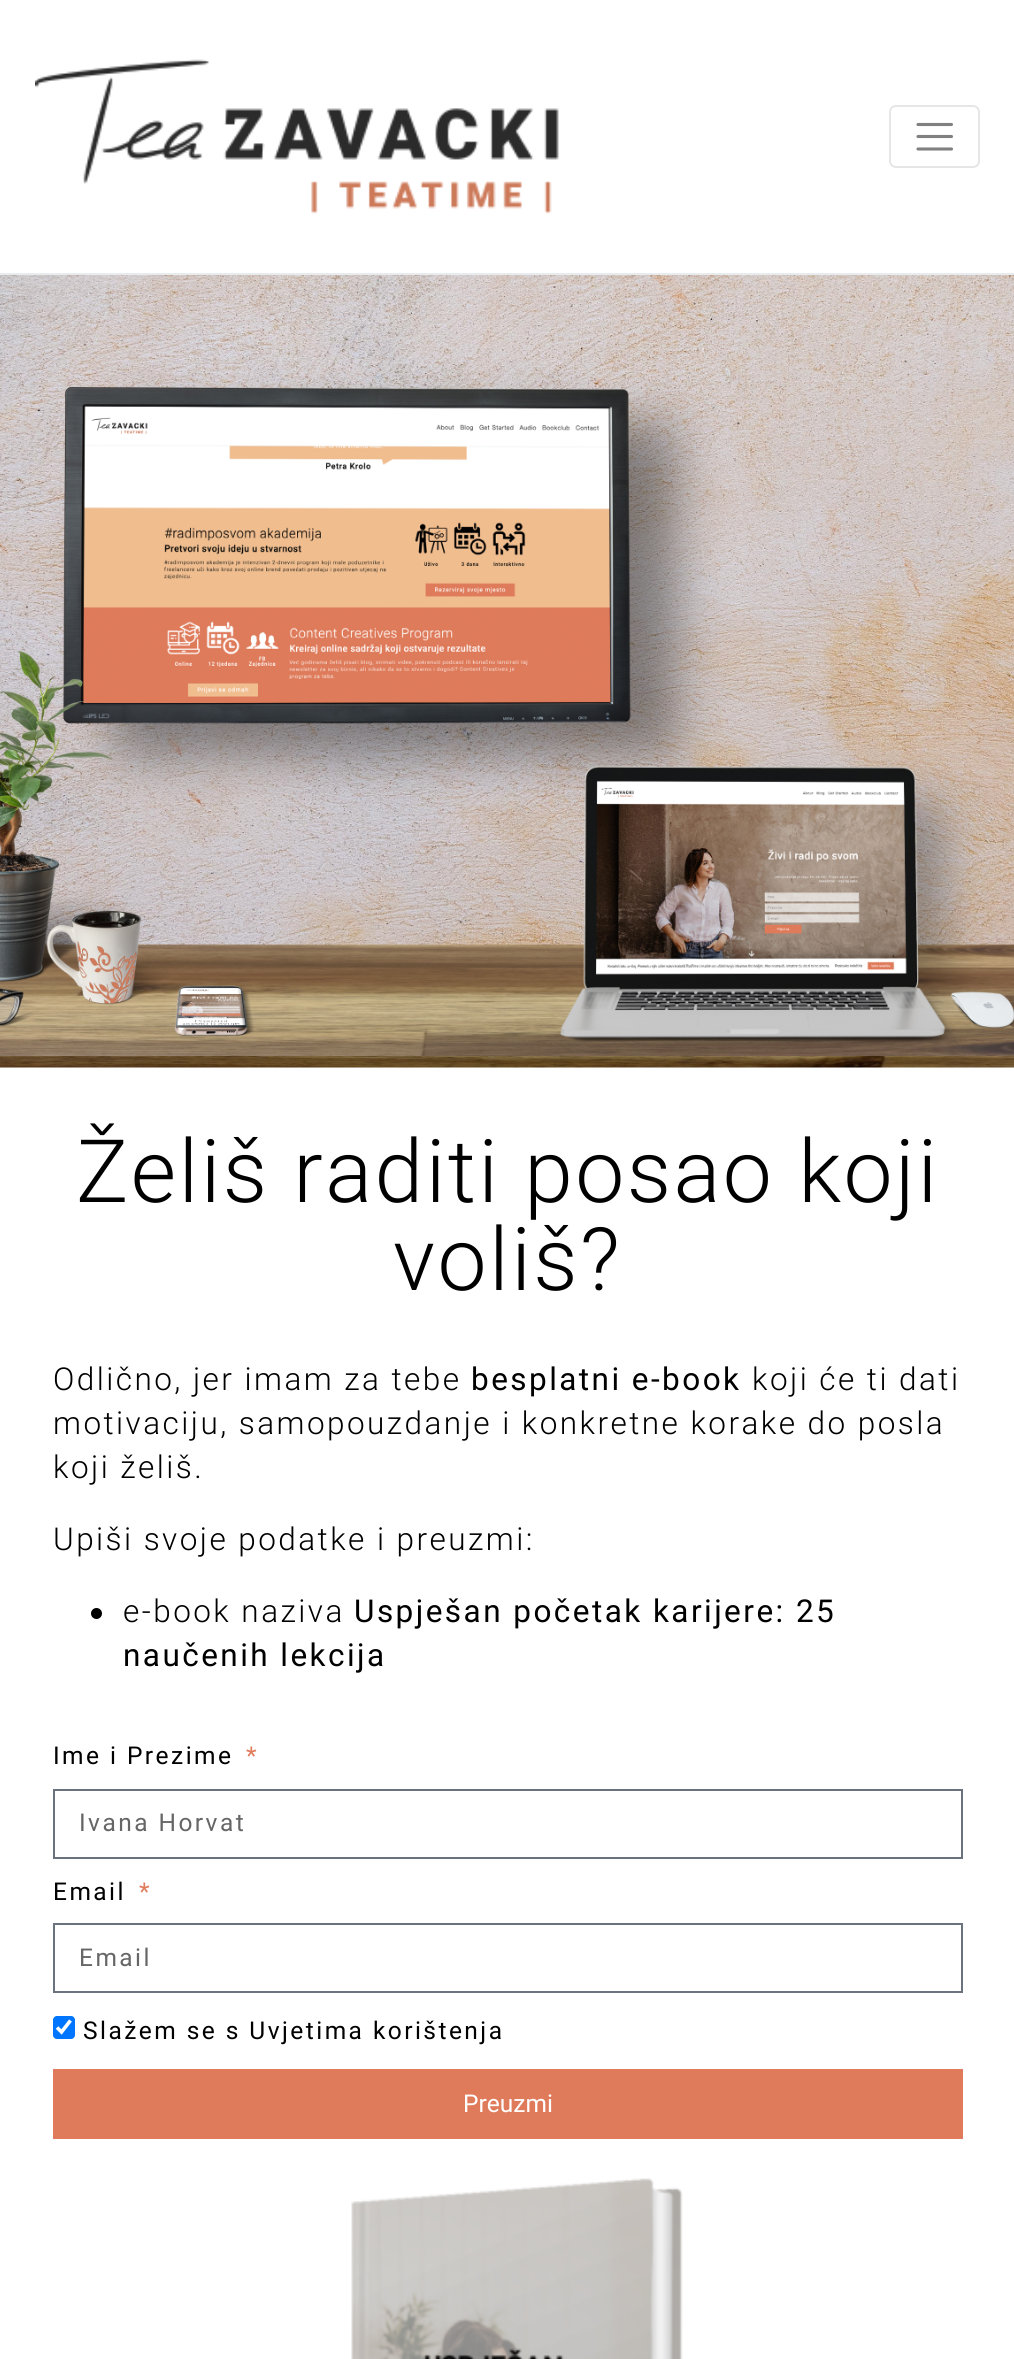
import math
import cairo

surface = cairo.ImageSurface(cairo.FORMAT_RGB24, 1014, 2359)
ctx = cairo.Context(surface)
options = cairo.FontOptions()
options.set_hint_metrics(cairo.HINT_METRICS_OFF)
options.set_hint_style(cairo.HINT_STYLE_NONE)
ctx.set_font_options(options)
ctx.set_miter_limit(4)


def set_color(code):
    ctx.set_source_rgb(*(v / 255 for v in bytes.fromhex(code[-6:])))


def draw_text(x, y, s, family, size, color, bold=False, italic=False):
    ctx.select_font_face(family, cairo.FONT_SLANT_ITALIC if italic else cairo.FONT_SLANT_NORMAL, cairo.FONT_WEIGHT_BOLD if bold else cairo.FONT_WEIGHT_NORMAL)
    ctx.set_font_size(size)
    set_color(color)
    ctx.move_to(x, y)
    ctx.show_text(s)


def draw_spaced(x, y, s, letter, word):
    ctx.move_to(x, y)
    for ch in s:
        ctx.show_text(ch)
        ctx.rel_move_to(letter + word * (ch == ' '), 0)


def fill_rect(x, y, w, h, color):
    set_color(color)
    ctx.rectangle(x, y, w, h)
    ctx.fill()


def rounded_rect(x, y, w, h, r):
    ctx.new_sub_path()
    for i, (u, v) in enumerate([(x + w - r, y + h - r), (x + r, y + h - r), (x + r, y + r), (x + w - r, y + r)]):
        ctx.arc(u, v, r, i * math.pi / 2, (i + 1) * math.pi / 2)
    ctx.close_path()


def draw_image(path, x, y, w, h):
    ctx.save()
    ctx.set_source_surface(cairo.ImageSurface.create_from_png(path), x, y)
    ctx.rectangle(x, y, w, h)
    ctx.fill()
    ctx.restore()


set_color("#ffffff")
ctx.paint()
fill_rect(0, 273, 1014, 2, "#e9ecef")
draw_image("assets/img1.png", 35, 59, 524, 155)
rounded_rect(890, 106, 89, 61, 6)
set_color("#e6e6e6")
ctx.stroke()
ctx.new_path()
ctx.move_to(918, 124.5)
ctx.line_to(951.5, 124.5)
ctx.move_to(918, 136.5)
ctx.line_to(951.5, 136.5)
ctx.move_to(918, 149)
ctx.line_to(951.5, 149)
set_color("#808080")
ctx.set_line_width(3.1)
ctx.set_line_cap(cairo.LINE_CAP_ROUND)
ctx.stroke()
draw_image("assets/img2.png", 0, 275, 1014, 793)
ctx.select_font_face("Roboto Light")
ctx.set_font_size(87.5)
set_color("#000000")
draw_spaced(76, 1202, "Želiš raditi posao koji", 2.45, 0)
draw_spaced(393, 1290, "voliš?", 2.45, 0)
ctx.set_font_size(31.5)
draw_spaced(53, 1390, "Odlično, jer imam za tebe", 2.45, 0)
ctx.select_font_face("Roboto")
draw_spaced(471, 1390, "besplatni e-book", 2.45, 0)
ctx.select_font_face("Roboto Light")
draw_spaced(752, 1390, "koji će ti dati", 2.45, 0)
draw_spaced(53, 1434, "motivaciju, samopouzdanje i konkretne korake do posla", 2.45, 0)
draw_spaced(53, 1478, "koji želiš.", 2.45, 0)
draw_spaced(53, 1550, "Upiši svoje podatke i preuzmi:", 2.45, 0)
ctx.new_path()
ctx.arc(96.5, 1613.5, 5.5, 0, 2 * math.pi)
ctx.fill()
draw_spaced(123, 1622, "e-book naziva", 2.45, 0)
ctx.select_font_face("Roboto")
draw_spaced(354, 1622, "Uspješan početak karijere: 25", 2.45, 0)
draw_spaced(123, 1666, "naučenih lekcija", 2.45, 0)
ctx.set_font_size(24.5)
draw_spaced(53, 1764, "Ime i Prezime", 2.45, 0)
set_color("#df7b5b")
draw_spaced(246, 1764, "*", 2.45, 0)
ctx.rectangle(54, 1790, 908, 68)
set_color("#69727d")
ctx.set_line_width(2)
ctx.set_line_cap(cairo.LINE_CAP_BUTT)
ctx.stroke()
set_color("#666666")
draw_spaced(79, 1831, "Ivana Horvat", 2.45, 0)
set_color("#000000")
draw_spaced(53, 1900, "Email", 2.45, 0)
set_color("#df7b5b")
draw_spaced(139, 1900, "*", 2.45, 0)
ctx.rectangle(54, 1924, 908, 68)
set_color("#69727d")
ctx.stroke()
set_color("#666666")
draw_spaced(79, 1966, "Email", 2.45, 0)
set_color("#0075ff")
rounded_rect(53, 2016, 22, 23, 4)
ctx.fill()
ctx.new_path()
ctx.move_to(57, 2027.5)
ctx.line_to(61.5, 2032)
ctx.line_to(70.5, 2020.5)
set_color("#ffffff")
ctx.set_line_width(3.6)
ctx.stroke()
set_color("#000000")
draw_spaced(83, 2039, "Slažem se s Uvjetima korištenja", 2.45, 0)
fill_rect(53, 2069, 910, 70, "#df7b5b")
draw_text(463, 2112, "Preuzmi", "Roboto", 24.5, "#ffffff")
draw_image("assets/img3.png", 351, 2178, 332, 181)
surface.write_to_png("output.png")
